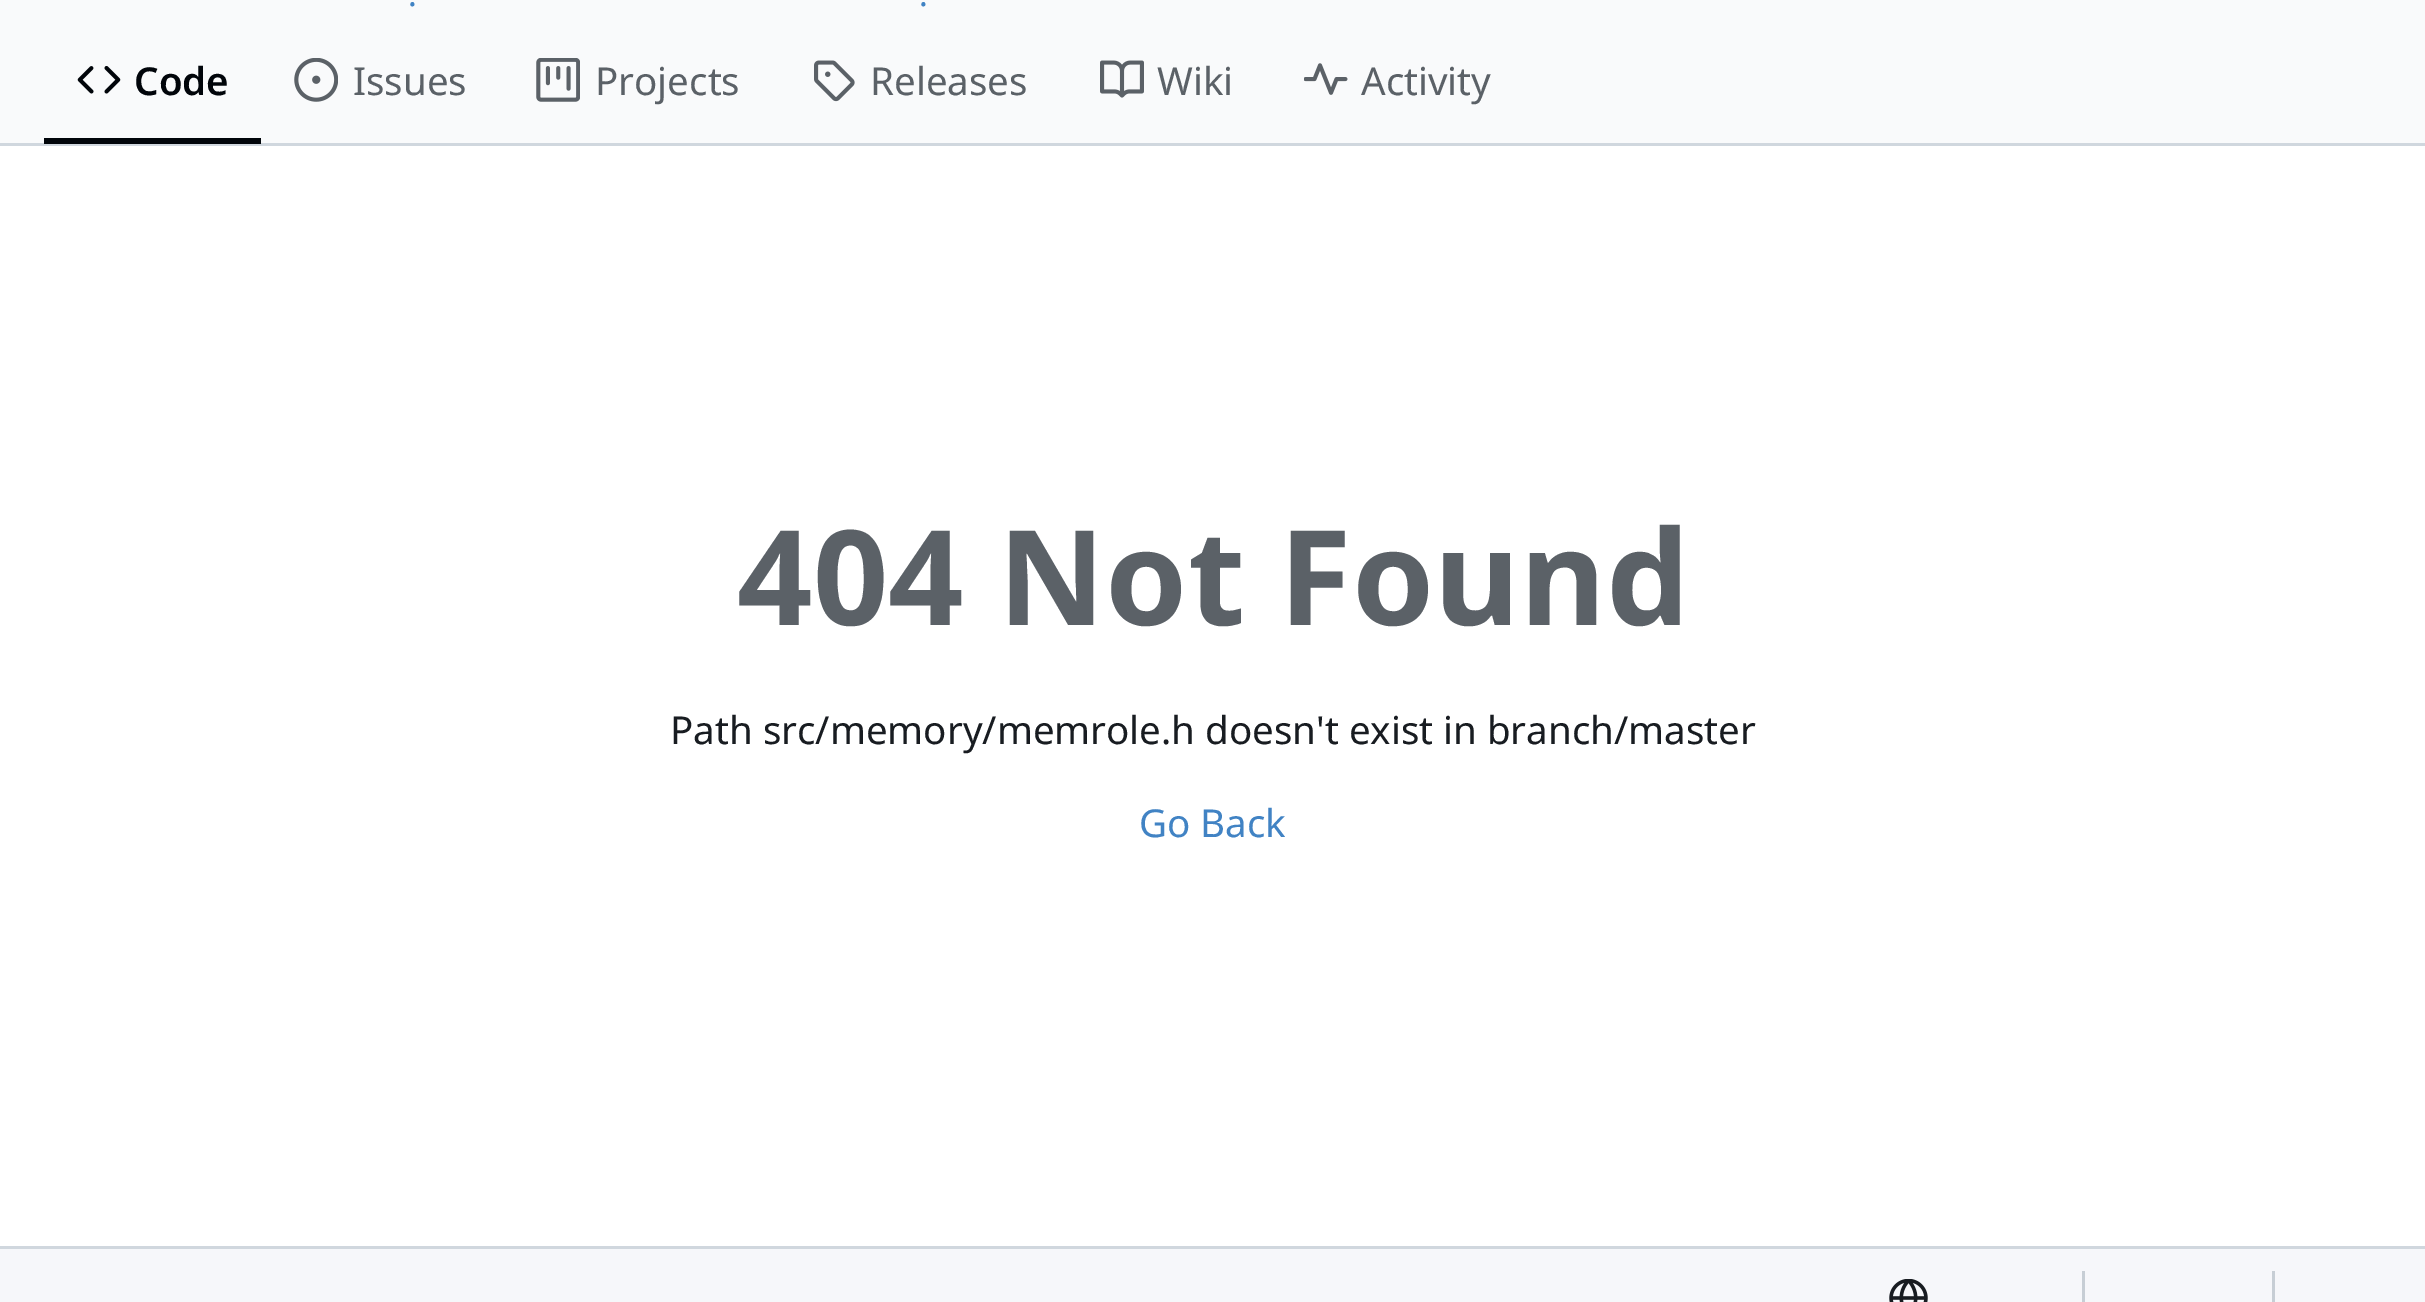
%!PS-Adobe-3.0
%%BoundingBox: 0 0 2425 1302
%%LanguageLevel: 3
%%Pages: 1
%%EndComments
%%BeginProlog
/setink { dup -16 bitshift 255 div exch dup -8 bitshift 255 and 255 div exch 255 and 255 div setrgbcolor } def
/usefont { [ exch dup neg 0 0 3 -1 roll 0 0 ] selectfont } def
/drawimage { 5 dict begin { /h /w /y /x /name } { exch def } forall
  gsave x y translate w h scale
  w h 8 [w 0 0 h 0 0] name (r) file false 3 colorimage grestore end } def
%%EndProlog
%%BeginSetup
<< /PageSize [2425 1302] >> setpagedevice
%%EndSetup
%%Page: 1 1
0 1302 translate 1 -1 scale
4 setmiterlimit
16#FFFFFF setink
0 0 2425 1302 rectfill
16#F9FAFB setink
0 0 2425 143 rectfill
/NotoSans-Regular 33 usefont
16#4183C4 setink
408 6 moveto (.) show
919 6 moveto (.) show
16#D0D7DE setink
0 143 2425 3 rectfill
16#01050A setink
44 138 217 6 rectfill
(img1.raw) 77 66 44 28 drawimage
/NotoSans-SemiBold 38.5 usefont
134 95 moveto (Code) show
(img2.raw) 294 58 44 44 drawimage
/NotoSans-Regular 38.5 usefont
16#5B6167 setink
353 95 moveto (Issues) show
(img3.raw) 536 58 44 44 drawimage
595 95 moveto (Projects) show
(img4.raw) 814 60 41 42 drawimage
870 95 moveto (Releases) show
(img5.raw) 1100 60 44 38 drawimage
1157 95 moveto (Wiki) show
(img6.raw) 1304 63 44 32 drawimage
1361 95 moveto (Activity) show
/NotoSans-Bold 132 usefont
737 625 moveto (404 Not Found) show
/NotoSans-Regular 38.5 usefont
16#181C21 setink
670 744 moveto (Path src/memory/memrole.h doesn't exist in branch/master) show
16#4183C4 setink
1139 837 moveto (Go Back) show
16#F6F7FA setink
0 1249 2425 53 rectfill
16#D0D7DE setink
0 1246 2425 3 rectfill
(img7.raw) 1889 1279 39 23 drawimage
16#C7CED5 setink
2082 1271 3 31 rectfill
2272 1271 3 31 rectfill
showpage
%%EOF
